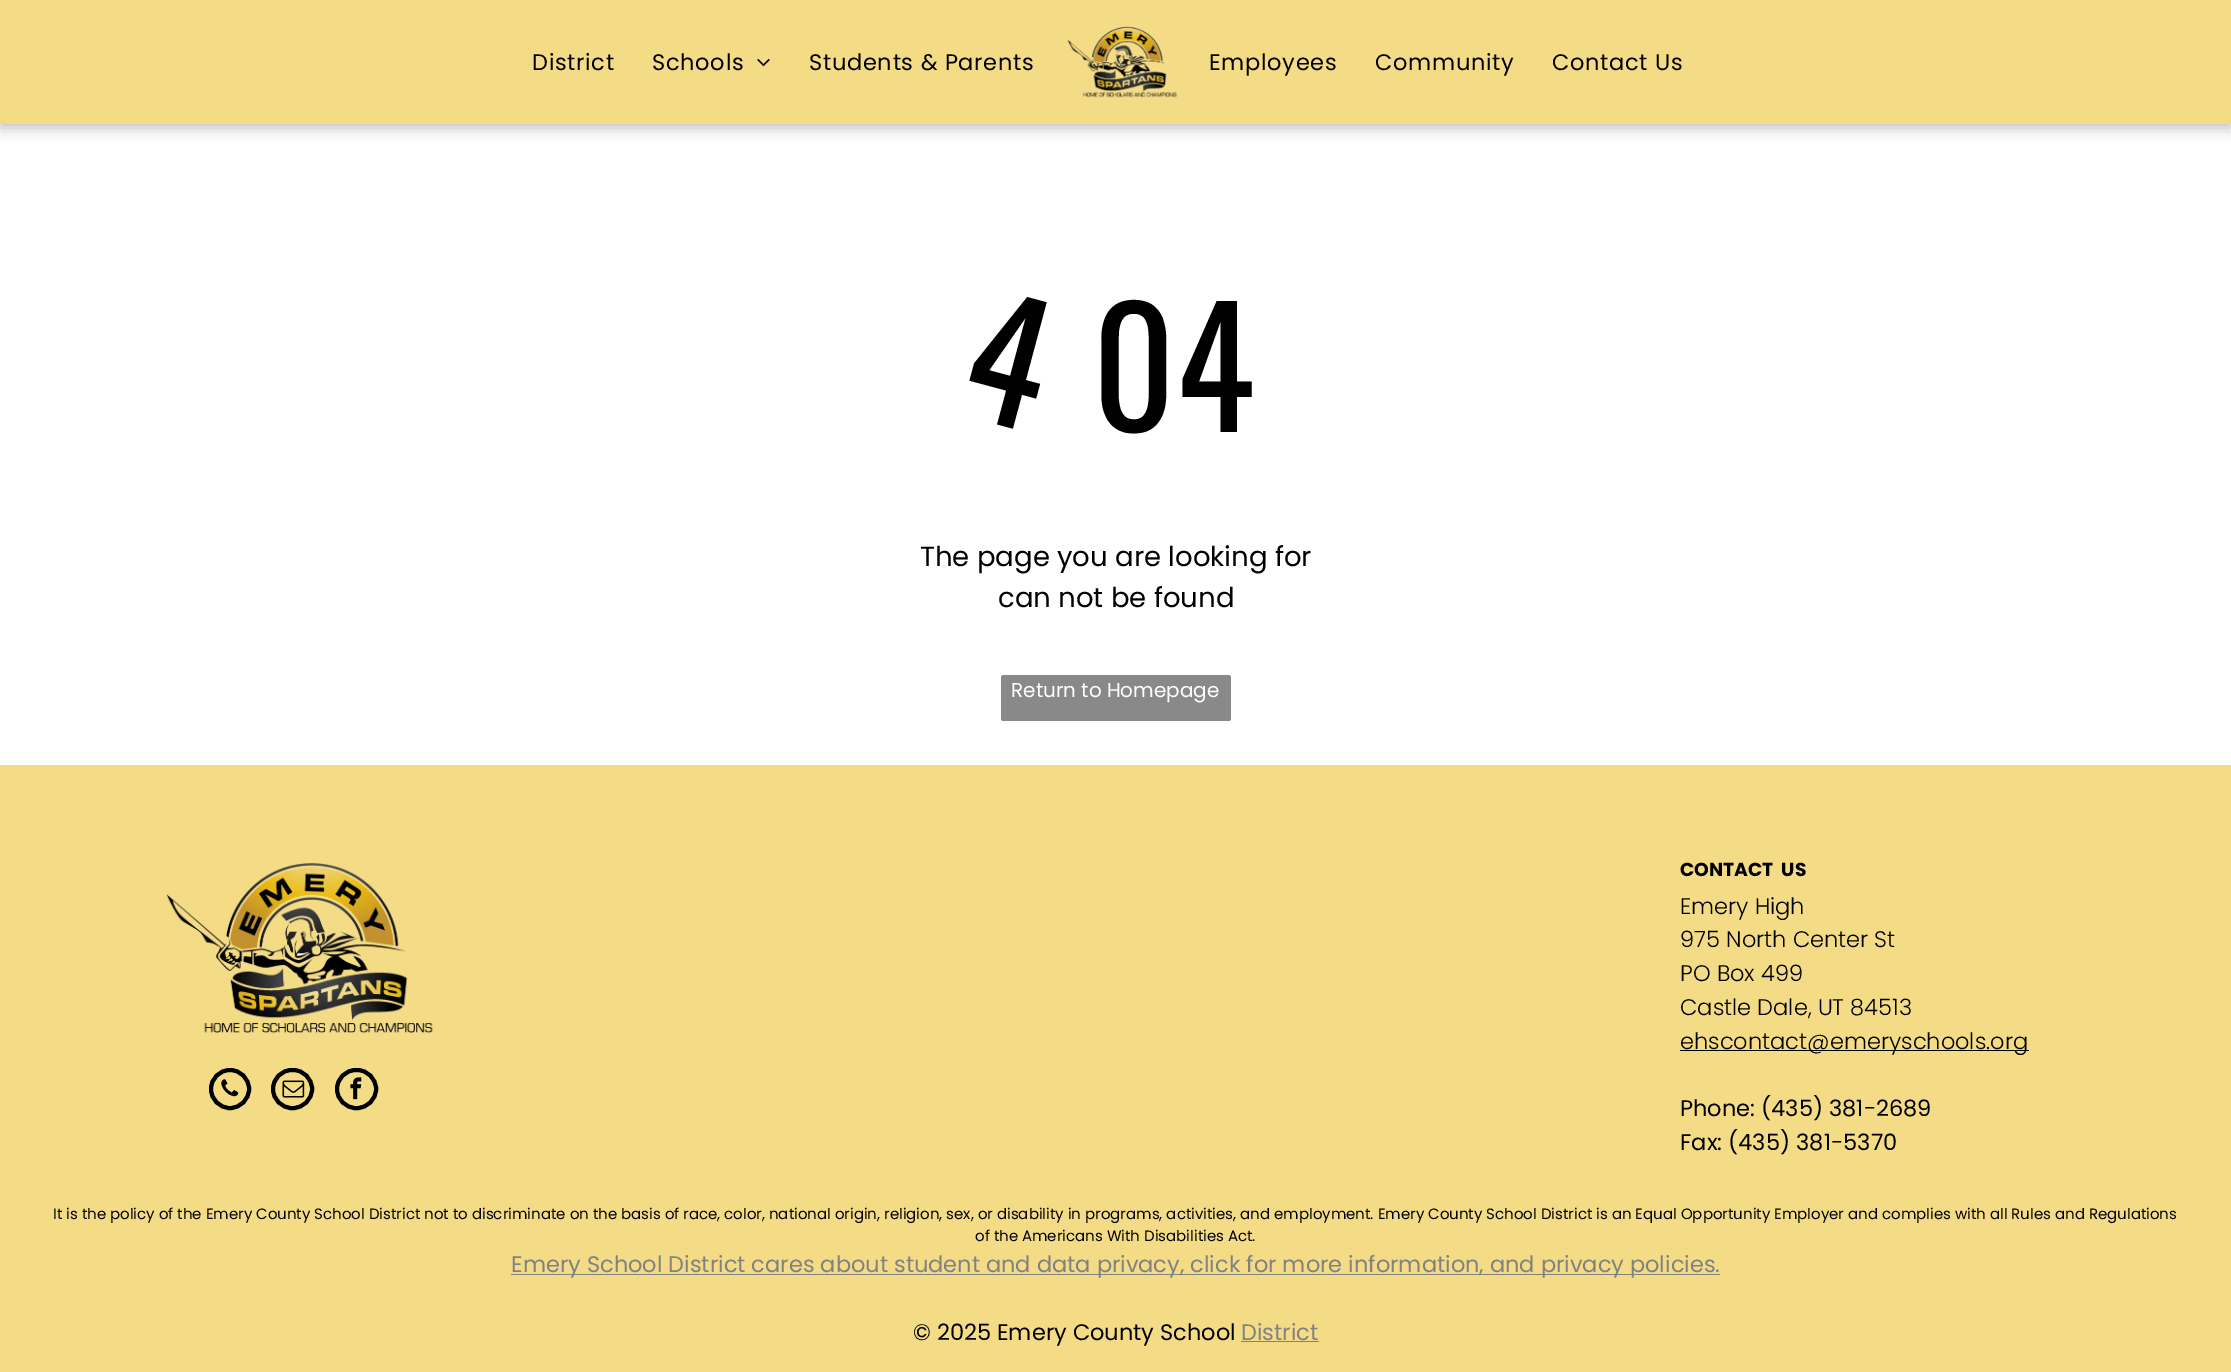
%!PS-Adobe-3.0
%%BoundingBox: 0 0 2231 1372
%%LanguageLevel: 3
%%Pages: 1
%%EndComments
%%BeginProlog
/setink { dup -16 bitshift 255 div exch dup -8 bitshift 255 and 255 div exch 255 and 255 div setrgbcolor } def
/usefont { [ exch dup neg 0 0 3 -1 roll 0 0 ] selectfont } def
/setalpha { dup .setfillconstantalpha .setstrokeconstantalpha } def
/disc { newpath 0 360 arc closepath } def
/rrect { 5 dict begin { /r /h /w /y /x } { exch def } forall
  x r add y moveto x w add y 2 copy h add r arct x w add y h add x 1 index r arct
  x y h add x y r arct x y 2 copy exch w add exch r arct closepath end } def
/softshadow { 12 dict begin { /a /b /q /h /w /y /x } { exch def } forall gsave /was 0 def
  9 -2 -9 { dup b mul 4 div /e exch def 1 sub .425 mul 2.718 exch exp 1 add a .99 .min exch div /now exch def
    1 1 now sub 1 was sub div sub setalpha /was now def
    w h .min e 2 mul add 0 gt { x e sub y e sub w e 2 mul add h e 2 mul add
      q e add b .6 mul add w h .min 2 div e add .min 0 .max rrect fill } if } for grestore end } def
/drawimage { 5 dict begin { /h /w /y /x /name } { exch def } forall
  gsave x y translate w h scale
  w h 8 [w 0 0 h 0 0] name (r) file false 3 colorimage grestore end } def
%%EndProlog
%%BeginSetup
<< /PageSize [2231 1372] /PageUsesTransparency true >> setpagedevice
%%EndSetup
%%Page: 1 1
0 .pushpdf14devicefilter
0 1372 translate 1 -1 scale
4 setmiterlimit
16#FFFFFF setink
0 0 2231 1372 rectfill
16#000000 setink
0 4 2231 124 0 7 0.25 softshadow
16#F4DC87 setink
0 0 2231 124 rectfill
/Poppins-Regular 22.5 usefont
16#000000 setink
532 70 moveto 0.7 0 (District) ashow
652 70 moveto 0.7 0 (Schools) ashow
(img1.raw) 757 59 13 8 drawimage
809 70 moveto 0.7 0 (Students & Parents) ashow
(img2.raw) 1067 26 110 72 drawimage
1209 70 moveto 0.7 0 (Employees) ashow
1375 70 moveto 0.7 0 (Community) ashow
1552 70 moveto 0.7 0 (Contact Us) ashow
/Oswald-Regular 162 usefont
gsave 954 413 translate 15 rotate 0 0 moveto (4) show grestore
1092 432 moveto (04) show
/Poppins-Regular 27.5 usefont
920 566 moveto (The page you are looking for) show
998 607 moveto (can not be found) show
16#898989 setink
1001 675 230 46 2.5 rrect fill
/Poppins-Regular 20 usefont
16#FFFFFF setink
1011 697 moveto (Return to Homepage) show
16#F4DC87 setink
0 765 2231 607 rectfill
(img3.raw) 166 863 267 170 drawimage
16#000000 setink
4 setlinewidth
230 1089 19 disc stroke
(img4.raw) 221 1079 18 18 drawimage
273 1070 39 38 19 rrect stroke
(img5.raw) 282 1080 23 18 drawimage
337 1070 39 38 19 rrect stroke
(img6.raw) 350 1077 12 23 drawimage
/Poppins-Bold 18.75 usefont
1680 876 moveto (CONTACT  US) show
/Poppins-Light 22.5 usefont
[
    [(Emery High) 1680 914]
    [(975 North Center St) 1680 947]
    [(PO Box 499) 1680 981]
    [(Castle Dale, UT 84513) 1680 1015]
] { aload pop moveto show } forall
1680 1050 349 1 rectfill
1680 1049 moveto (ehscontact@emeryschools.org) show
/Poppins-Regular 22.5 usefont
1680 1116 moveto (Phone: \(435\) 381-2689) show
1680 1150 moveto (Fax: \(435\) 381-5370) show
/Poppins-Regular 15 usefont
53 1219 moveto (It is the policy of the Emery County School District not to discriminate on the basis of race, color, national origin, religion, sex, or disability in programs, activities, and employment. Emery County School District is an Equal Opportunity Employer and complies with all Rules and Regulations) show
975 1241 moveto (of the Americans With Disabilities Act.) show
16#818181 setink
511 1274 1209 1 rectfill
/Poppins-Regular 22.5 usefont
511 1272 moveto (Emery School District cares about student and data privacy, click for more information, and privacy policies.) show
16#000000 setink
913 1340 moveto (© 2025 Emery County School) show
16#818181 setink
1241 1340 moveto (District) show
1241 1341 78 1 rectfill
.poppdf14devicefilter showpage
%%EOF
